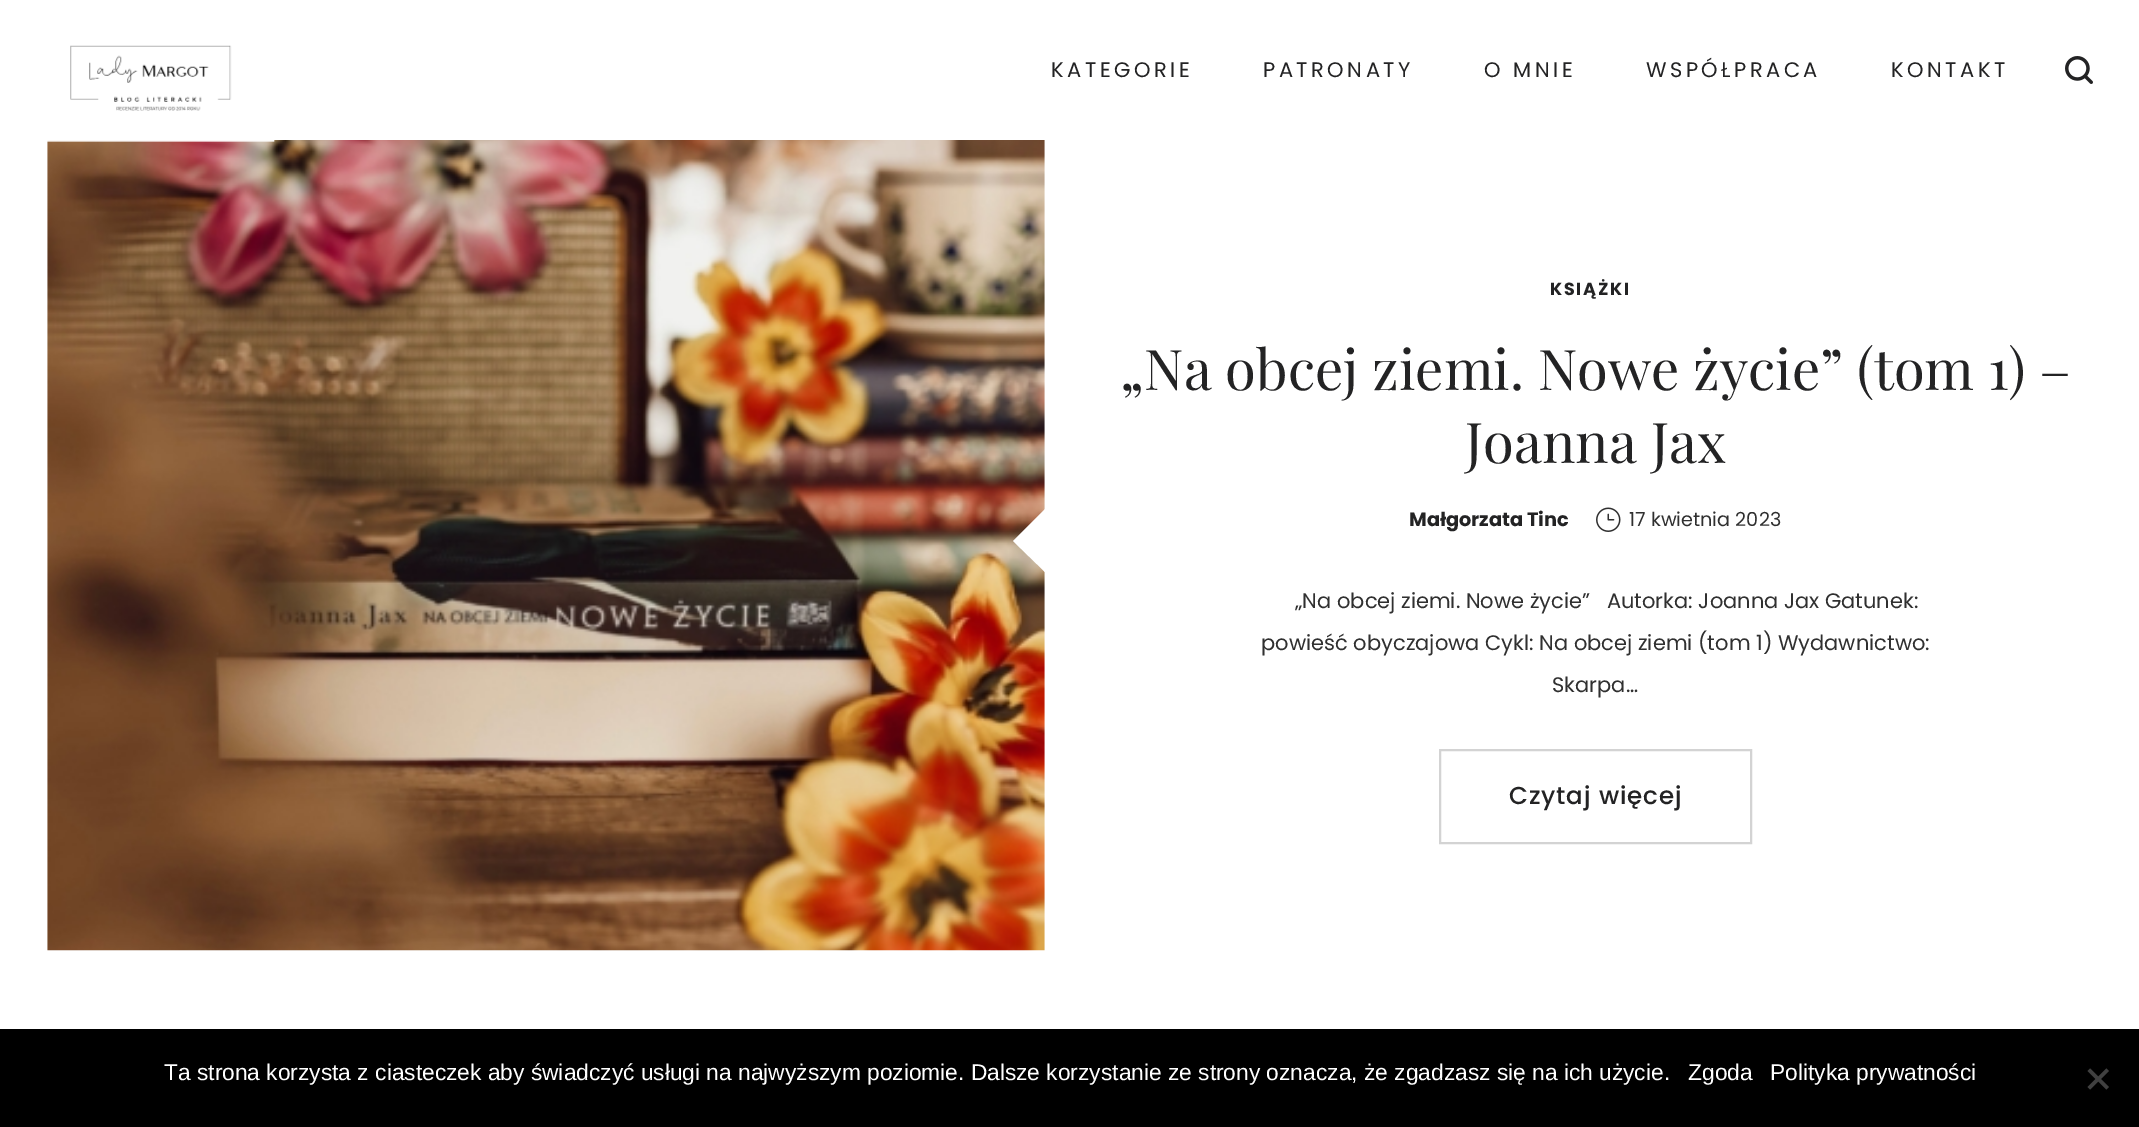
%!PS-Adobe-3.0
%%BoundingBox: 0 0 2139 1127
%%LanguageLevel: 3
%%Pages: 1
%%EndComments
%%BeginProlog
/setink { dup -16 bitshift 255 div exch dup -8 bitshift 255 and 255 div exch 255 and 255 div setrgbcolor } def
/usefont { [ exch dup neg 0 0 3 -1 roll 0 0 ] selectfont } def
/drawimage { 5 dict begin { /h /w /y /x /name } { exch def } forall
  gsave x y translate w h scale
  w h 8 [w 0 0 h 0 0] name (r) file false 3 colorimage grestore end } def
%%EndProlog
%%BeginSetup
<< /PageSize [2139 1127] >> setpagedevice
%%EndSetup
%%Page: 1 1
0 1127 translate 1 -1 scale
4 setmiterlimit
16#FFFFFF setink
0 0 2139 1127 rectfill
(img3.raw) 47 140 998 811 drawimage
(img1.raw) 47 45 228 97 drawimage
/Poppins-Regular 21 usefont
16#232324 setink
1051 77 moveto 3.5 0 (KATEGORIE) ashow
1263 77 moveto 3.5 0 (PATRONATY) ashow
1484 77 moveto 3.5 0 (O MNIE) ashow
1646 77 moveto 3.5 0 (WSPÓŁPRACA) ashow
1891 77 moveto 3.5 0 (KONTAKT) ashow
(img2.raw) 2065 56 28 28 drawimage
16#FFFFFF setink
1045 509 moveto 1045 572 lineto 1013 541 lineto closepath fill
/Poppins-Bold 17.5 usefont
16#232324 setink
1550 295 moveto 1.75 0 (KSIĄŻKI) ashow
/PlayfairDisplay-Regular 56 usefont
1120 390 moveto („Na obcej ziemi. Nowe życie” \(tom 1\) –) show
1465 463 moveto (Joanna Jax) show
/Poppins-Bold 19.25 usefont
1409 526 moveto (Małgorzata Tinc) show
(img4.raw) 1596 507 25 25 drawimage
/Poppins-Regular 19.25 usefont
16#303030 setink
1629 526 moveto (17 kwietnia 2023) show
/Poppins-Regular 21 usefont
[
    [(„Na obcej ziemi. Nowe życie”   Autorka: Joanna Jax Gatunek:) 1295 608]
    [(powieść obyczajowa Cykl: Na obcej ziemi \(tom 1\) Wydawnictwo:) 1261 650]
    [(Skarpa…) 1552 692]
] { aload pop moveto show } forall
16#D3D3D3 setink
2 setlinewidth
1440 750 311 93 rectstroke
/Poppins-Medium 24.5 usefont
16#232324 setink
1509 804 moveto 0.9 0 (Czytaj więcej) ashow
16#000000 setink
0 1029 2139 98 rectfill
/LiberationSans-Regular 22.75 usefont
16#FFFFFF setink
[
    [(Ta strona korzysta z ciasteczek aby świadczyć usługi na najwyższym poziomie. Dalsze korzystanie ze strony oznacza, że zgadzasz się na ich użycie.) 164 1080]
    [(Zgoda) 1688 1080]
    [(Polityka prywatności) 1770 1080]
] { aload pop moveto show } forall
16#404040 setink
2106.5 1068.5 moveto 2109 1071 lineto 2090 1089.5 lineto 2087.5 1087 lineto closepath fill
2087.5 1071 moveto 2090 1068.5 lineto 2109 1087 lineto 2106.5 1089.5 lineto closepath fill
showpage
%%EOF
